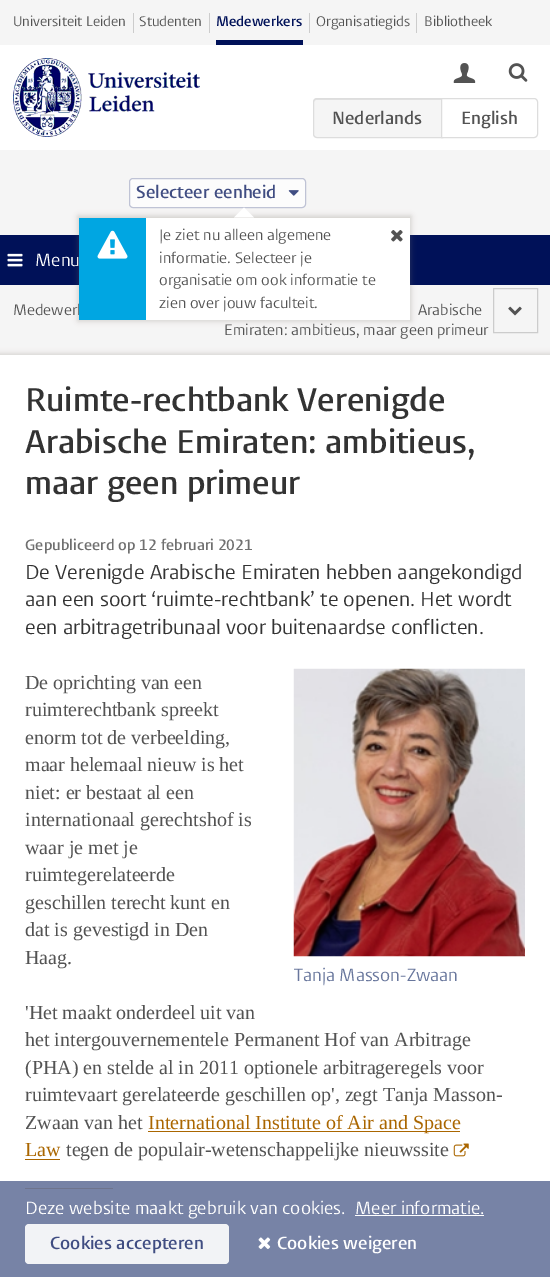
%!PS-Adobe-3.0
%%BoundingBox: 0 0 550 1277
%%LanguageLevel: 3
%%Pages: 1
%%EndComments
%%BeginProlog
/setink { dup -16 bitshift 255 div exch dup -8 bitshift 255 and 255 div exch 255 and 255 div setrgbcolor } def
/usefont { [ exch dup neg 0 0 3 -1 roll 0 0 ] selectfont } def
/setalpha { dup .setfillconstantalpha .setstrokeconstantalpha } def
/rrect { 5 dict begin { /r /h /w /y /x } { exch def } forall
  x r add y moveto x w add y 2 copy h add r arct x w add y h add x 1 index r arct
  x y h add x y r arct x y 2 copy exch w add exch r arct closepath end } def
/softshadow { 12 dict begin { /a /b /q /h /w /y /x } { exch def } forall gsave /was 0 def
  9 -2 -9 { dup b mul 4 div /e exch def 1 sub .425 mul 2.718 exch exp 1 add a .99 .min exch div /now exch def
    1 1 now sub 1 was sub div sub setalpha /was now def
    w h .min e 2 mul add 0 gt { x e sub y e sub w e 2 mul add h e 2 mul add
      q e add b .6 mul add w h .min 2 div e add .min 0 .max rrect fill } if } for grestore end } def
/drawimage { 5 dict begin { /h /w /y /x /name } { exch def } forall
  gsave x y translate w h scale
  w h 8 [w 0 0 h 0 0] name (r) file false 3 colorimage grestore end } def
%%EndProlog
%%BeginSetup
<< /PageSize [550 1277] /PageUsesTransparency true >> setpagedevice
%%EndSetup
%%Page: 1 1
0 .pushpdf14devicefilter
0 1277 translate 1 -1 scale
4 setmiterlimit
16#F5F5F5 setink
0 0 550 1277 rectfill
16#FFFFFF setink
0 45 550 105 rectfill
16#CCCCCC setink
133 13 1 20 rectfill
/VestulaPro-Regular 13.75 usefont
16#535353 setink
13 26 moveto (Universiteit Leiden) show
16#CCCCCC setink
209 13 1 20 rectfill
16#535353 setink
139 26 moveto (Studenten) show
16#CCCCCC setink
309 13 1 20 rectfill
/VestulaPro-SemiBold 13.75 usefont
16#001158 setink
216 26 moveto (Medewerkers) show
216 40 87 5 rectfill
16#CCCCCC setink
416 13 1 20 rectfill
/VestulaPro-Regular 13.75 usefont
16#535353 setink
316 26 moveto (Organisatiegids) show
424 26 moveto (Bibliotheek) show
(img1.raw) 13 58 187 79 drawimage
(img2.raw) 453 63 23 20 drawimage
(img3.raw) 508 63 20 19 drawimage
16#F5F5F5 setink
317 98 moveto 443 98 lineto 443 138 lineto 317 138 lineto 315 138 313 136 313 134 curveto 313 102 lineto 313 100 315 98 317 98 curveto closepath fill
16#E1E1E1 setink
316 100 moveto 441 100 lineto 441 99 lineto 316 99 lineto 315 99 314 100 314 102 curveto 314 101 315 100 316 100 curveto closepath fill
16#DDDDDD setink
317 98.5 moveto 442.5 98.5 lineto 442.5 137.5 lineto 317 137.5 lineto 315 137.5 313.5 136 313.5 134 curveto 313.5 102 lineto 313.5 100 315 98.5 317 98.5 curveto closepath stroke
/VestulaPro-SemiBold 17.5 usefont
16#535353 setink
332 124 moveto (Nederlands) show
16#FFFFFF setink
441.5 98.5 moveto 534 98.5 lineto 536 98.5 537.5 100 537.5 102 curveto 537.5 134 lineto 537.5 136 536 137.5 534 137.5 curveto 441.5 137.5 lineto closepath gsave fill grestore
16#DDDDDD setink
stroke
16#535353 setink
461 124 moveto (English) show
16#001158 setink
0 235 550 50 rectfill
(img4.raw) 7 253 16 14 drawimage
/VestulaPro-Regular 17.5 usefont
16#FFFFFF setink
35 266 moveto (Menu) show
16#FCFCFC setink
129.5 178.5 176 29 3.5 rrect gsave fill grestore
16#BFC3D5 setink
stroke
/VestulaPro-SemiBold 17.5 usefont
16#404D82 setink
136 198 moveto (Selecteer eenheid) show
(img5.raw) 288 190 11 6 drawimage
16#786E64 setink
78 216 333 105 0 3 0.3 softshadow
16#FFFFFF setink
146 218 264 102 rectfill
254 217.5 moveto 234 217.5 lineto 244 207.5 lineto closepath fill
/VestulaPro-Regular 15 usefont
16#535353 setink
13 315 moveto (Medewerk) show
16#00A6E2 setink
79 218 67 102 rectfill
(img6.raw) 97 230 31 29 drawimage
16#535353 setink
159 240 moveto (Je ziet nu alleen algemene) show
(img7.raw) 391 230 12 12 drawimage
[
    [(informatie. Selecteer je) 159 263]
    [(organisatie om ook informatie te) 159 285]
    [(zien over jouw faculteit.) 159 308]
    [(Arabische) 418 315]
    [(Emiraten: ambitieus, maar geen primeur) 224 335]
] { aload pop moveto show } forall
16#CCCCCC setink
493.5 288.5 44 44 rectstroke
(img8.raw) 508 306 14 10 drawimage
16#786E64 setink
-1 354 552 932 0 3 0.3 softshadow
16#FFFFFF setink
0 355 550 922 rectfill
/VestulaPro-SemiBold 32.5 usefont
16#333333 setink
[
    [(Ruimte-rechtbank Verenigde) 25 411]
    [(Arabische Emiraten: ambitieus,) 25 453]
    [(maar geen primeur) 25 494]
] { aload pop moveto show } forall
/VestulaPro-SemiBold 15 usefont
16#707070 setink
25 550 moveto (Gepubliceerd op 12 februari 2021) show
/VestulaPro-Regular 20 usefont
16#333333 setink
[
    [(De Verenigde Arabische Emiraten hebben aangekondigd) 25 579]
    [(aan een soort ‘ruimte-rechtbank’ te openen. Het wordt) 25 606]
    [(een arbitragetribunaal voor buitenaardse conflicten.) 25 634]
] { aload pop moveto show } forall
/LiberationSerif-Regular 20 usefont
16#535353 setink
[
    [(De oprichting van een) 25 689]
    [(ruimterechtbank spreekt) 25 716]
    [(enorm tot de verbeelding,) 25 744]
    [(maar helemaal nieuw is het) 25 771]
    [(niet: er bestaat al een) 25 799]
    [(internationaal gerechtshof is) 25 826]
    [(waar je met je) 25 854]
    [(ruimtegerelateerde) 25 881]
    [(geschillen terecht kunt en) 25 909]
    [(dat is gevestigd in Den) 25 936]
    [(Haag.) 25 964]
] { aload pop moveto show } forall
(img9.raw) 293 668 232 289 drawimage
/VestulaPro-Regular 17.5 usefont
16#68769C setink
294 981 moveto (Tanja Masson-Zwaan) show
/LiberationSerif-Regular 20 usefont
16#535353 setink
[
    [('Het maakt onderdeel uit van) 25 1019]
    [(het intergouvernementele Permanent Hof van Arbitrage) 25 1046]
    [(\(PHA\) en stelde al in 2011 optionele arbitrageregels voor) 25 1074]
    [(ruimtevaart gerelateerde geschillen op', zegt Tanja Masson-) 25 1101]
    [(Zwaan van het) 25 1129]
] { aload pop moveto show } forall
16#AA6600 setink
148 1131 312 1 rectfill
148 1129 moveto (International Institute of Air and Space) show
25 1156 moveto (Law) show
25 1159 35 1 rectfill
16#535353 setink
66 1156 moveto (tegen de populair-wetenschappelijke nieuwssite) show
(img10.raw) 453 1143 16 14 drawimage
16#AA6600 setink
25 1188 88 1 rectfill
0.9 setalpha
16#68769C setink
0 1181 550 96 rectfill
/VestulaPro-Regular 17.5 usefont
1 setalpha
16#FFFFFF setink
25 1214 moveto (Deze website maakt gebruik van cookies.) show
355 1214 moveto (Meer informatie.) show
355 1215 129 1 rectfill
0.9 setalpha
25 1224 204 40 4 rrect fill
/VestulaPro-SemiBold 17.5 usefont
1 setalpha
16#404D82 setink
50 1249 moveto (Cookies accepteren) show
(img11.raw) 258 1237 13 12 drawimage
16#FFFFFF setink
277 1249 moveto (Cookies weigeren) show
.poppdf14devicefilter showpage
%%EOF
